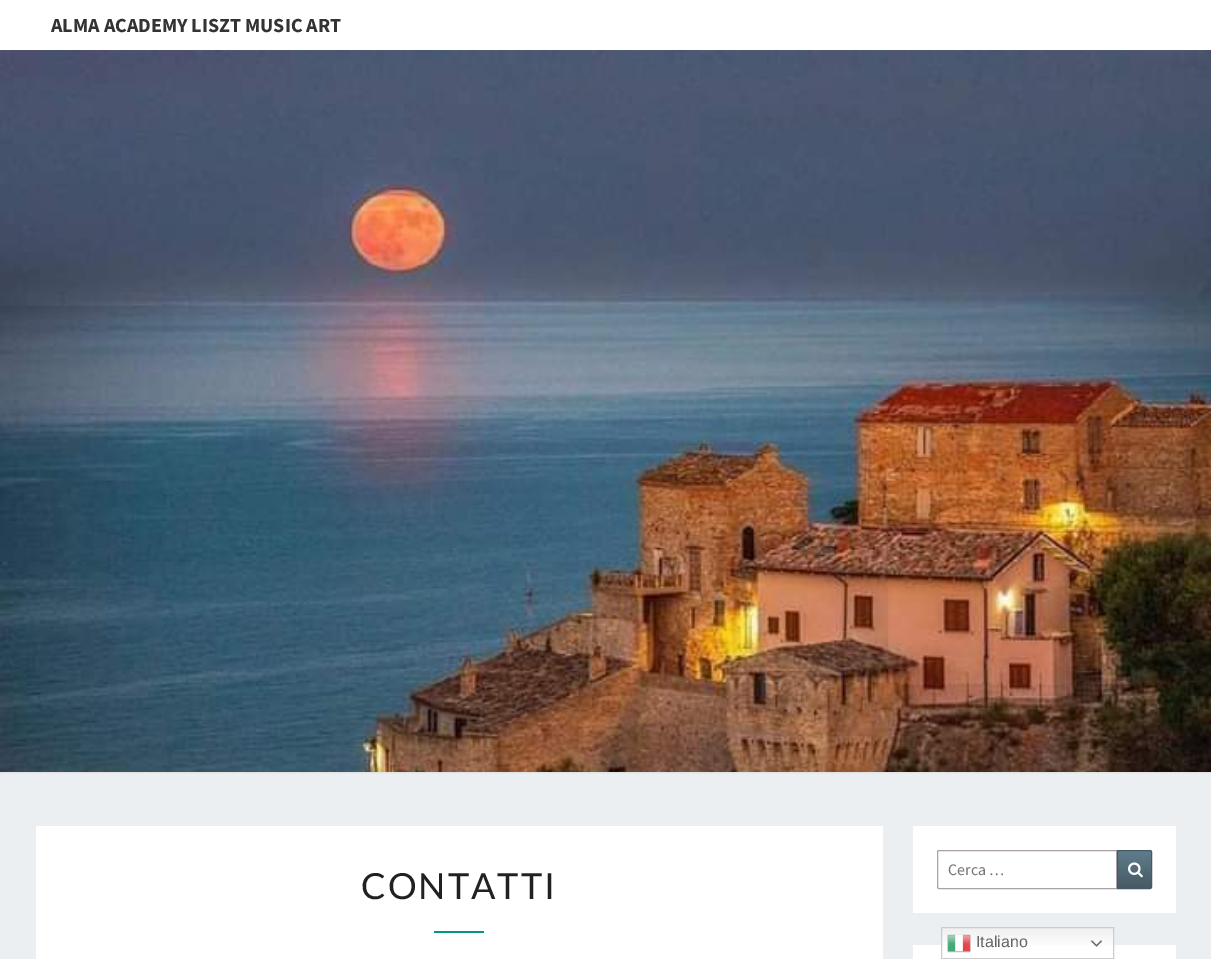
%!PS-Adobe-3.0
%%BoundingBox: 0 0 1211 959
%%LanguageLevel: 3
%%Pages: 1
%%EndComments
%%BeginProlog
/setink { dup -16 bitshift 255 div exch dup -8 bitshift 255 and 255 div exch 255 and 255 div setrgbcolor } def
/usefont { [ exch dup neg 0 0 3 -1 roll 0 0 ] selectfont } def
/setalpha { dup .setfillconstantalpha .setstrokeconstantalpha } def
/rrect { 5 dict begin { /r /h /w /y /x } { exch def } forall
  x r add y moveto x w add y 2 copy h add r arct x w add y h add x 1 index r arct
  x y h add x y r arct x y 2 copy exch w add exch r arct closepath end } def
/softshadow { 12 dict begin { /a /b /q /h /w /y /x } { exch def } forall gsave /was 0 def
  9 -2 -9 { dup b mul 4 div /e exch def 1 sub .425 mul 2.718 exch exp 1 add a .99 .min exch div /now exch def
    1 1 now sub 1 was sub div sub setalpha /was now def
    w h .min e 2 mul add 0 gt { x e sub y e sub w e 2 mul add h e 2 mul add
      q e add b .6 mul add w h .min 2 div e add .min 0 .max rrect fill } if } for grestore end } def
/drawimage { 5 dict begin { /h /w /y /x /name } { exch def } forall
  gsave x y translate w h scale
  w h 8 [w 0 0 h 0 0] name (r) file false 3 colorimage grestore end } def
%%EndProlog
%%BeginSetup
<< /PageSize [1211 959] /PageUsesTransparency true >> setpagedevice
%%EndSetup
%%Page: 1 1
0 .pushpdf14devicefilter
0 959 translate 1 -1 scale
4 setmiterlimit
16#ECEFF1 setink
0 0 1211 959 rectfill
16#B6B6B6 setink
-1 49 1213 724 0 1 0.3 softshadow
(img1.raw) 0 50 1211 722 drawimage
16#646464 setink
0 1 1211 50 0 0.5 0.2 softshadow
16#FFFFFF setink
0 0 1211 50 rectfill
/SourceSansPro-Bold 20 usefont
16#333333 setink
51 32 moveto (ALMA ACADEMY LISZT MUSIC ART) show
16#FFFFFF setink
913 826 263 87 rectfill
16#AAA1A8 setink
939 850.5 moveto 1116.5 850.5 lineto 1116.5 888.5 lineto 939 888.5 lineto 938 888.5 937.5 888 937.5 887 curveto 937.5 852 lineto 937.5 851 938 850.5 939 850.5 curveto closepath stroke
/SourceSansPro-Regular 16 usefont
16#757575 setink
948 875 moveto (Cerca …) show
gsave 1118 851 moveto 1152 851 lineto 1152 888 lineto 1118 888 lineto closepath clip newpath
<< /ShadingType 2 /ColorSpace /DeviceRGB /Coords [1135 851 1135 888] /Extend [true true] /Function << /FunctionType 2 /Domain [0 1] /C0 [0.376 0.49 0.545] /C1 [0.271 0.353 0.392] /N 1 >> >> shfill grestore
16#455A64 setink
1117.5 850.5 moveto 1150 850.5 lineto 1151 850.5 1151.5 851 1151.5 852 curveto 1151.5 887 lineto 1151.5 888 1151 888.5 1150 888.5 curveto 1117.5 888.5 lineto closepath stroke
(img2.raw) 1128 862 15 16 drawimage
16#FFFFFF setink
913 945 263 14 rectfill
36 826 847 133 rectfill
/Lato-Regular 36 usefont
16#212121 setink
361 899 moveto 2 0 (CONTATTI) ashow
16#009688 setink
434 931 50 2 rectfill
gsave 942 928 moveto 1113 928 lineto 1113 946 lineto 942 946 lineto closepath clip newpath
<< /ShadingType 2 /ColorSpace /DeviceRGB /Coords [1028 927 1028 959] /Extend [true true] /Function << /FunctionType 3 /Domain [0 1] /Functions [<< /FunctionType 2 /Domain [0 1] /C0 [0.937 0.937 0.937] /C1 [1 1 1] /N 1 >> << /FunctionType 2 /Domain [0 1] /C0 [1 1 1] /C1 [1 1 1] /N 1 >>] /Bounds [0.7] /Encode [0 1 0 1] >> >> shfill grestore
16#CCCCCC setink
941.5 927.5 172 31 rectstroke
(img3.raw) 947 934 24 19 drawimage
/LiberationSans-Regular 16 usefont
16#666666 setink
976 947 moveto (Italiano) show
(img4.raw) 1091 940 11 7 drawimage
.poppdf14devicefilter showpage
%%EOF
